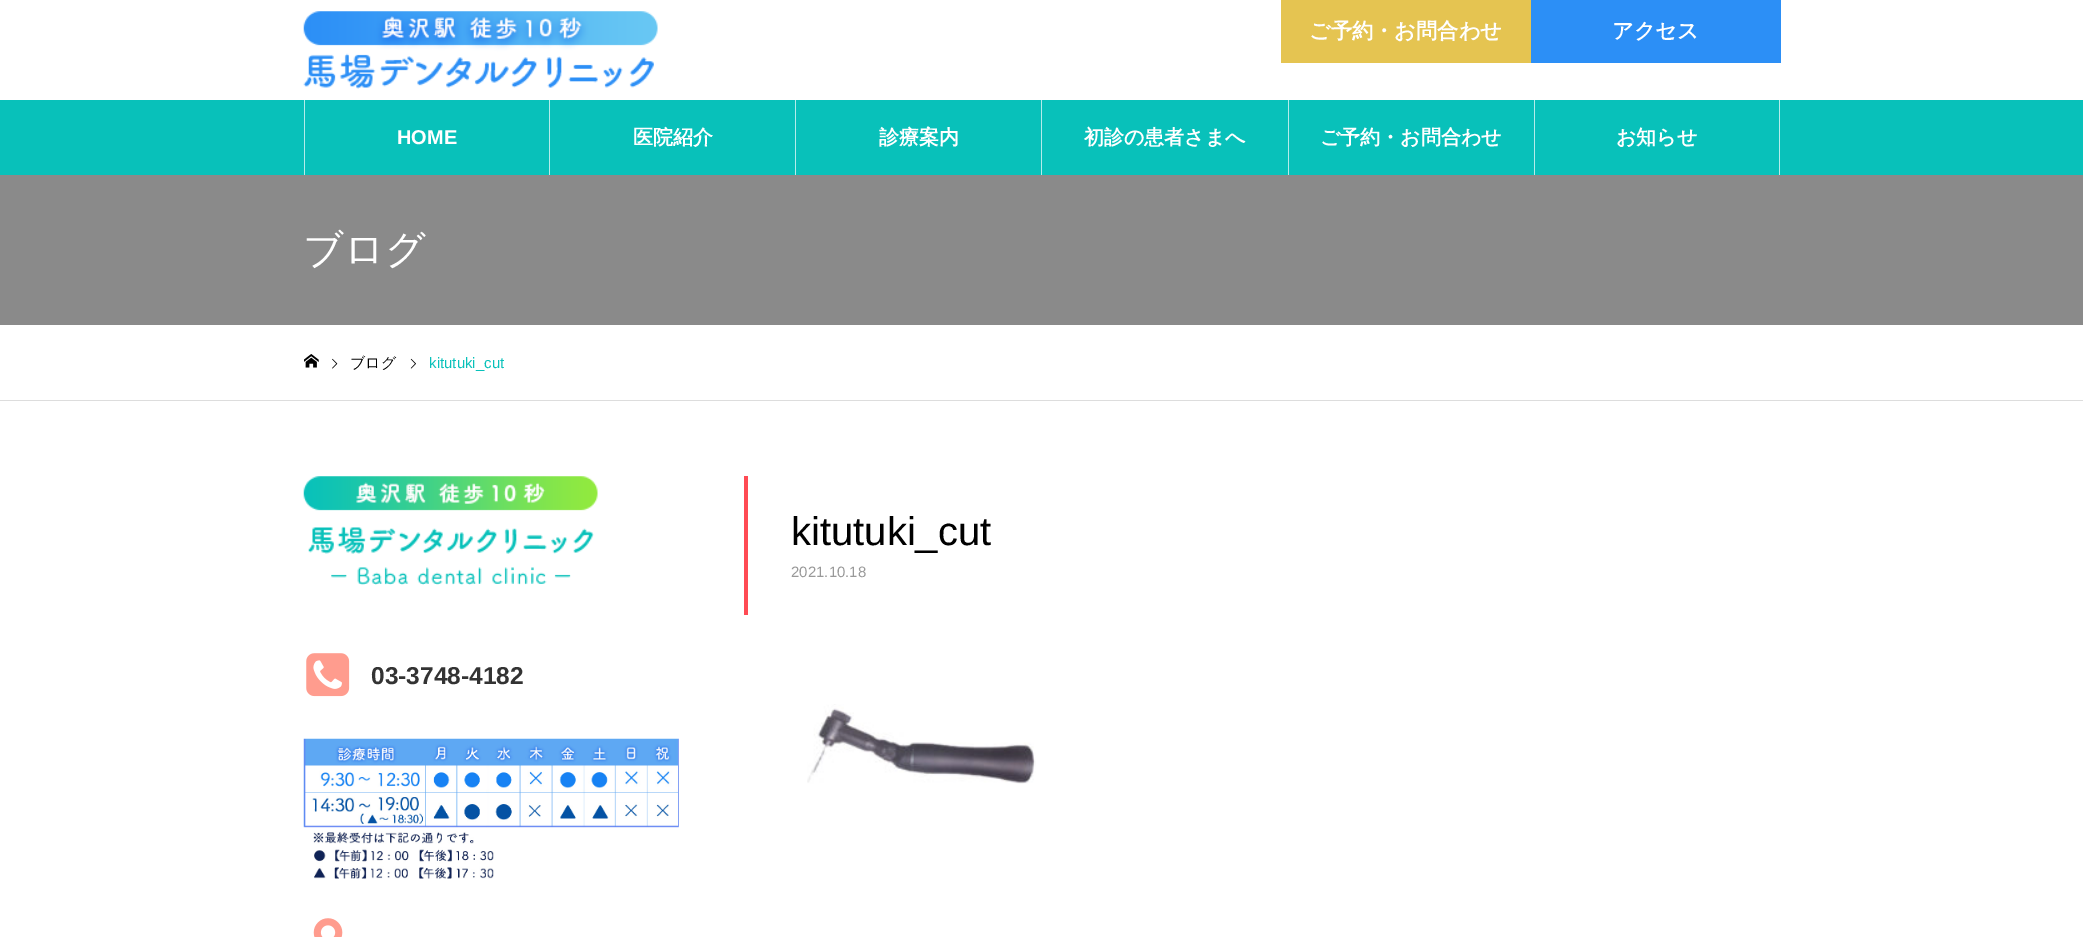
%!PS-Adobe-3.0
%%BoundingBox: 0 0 2083 937
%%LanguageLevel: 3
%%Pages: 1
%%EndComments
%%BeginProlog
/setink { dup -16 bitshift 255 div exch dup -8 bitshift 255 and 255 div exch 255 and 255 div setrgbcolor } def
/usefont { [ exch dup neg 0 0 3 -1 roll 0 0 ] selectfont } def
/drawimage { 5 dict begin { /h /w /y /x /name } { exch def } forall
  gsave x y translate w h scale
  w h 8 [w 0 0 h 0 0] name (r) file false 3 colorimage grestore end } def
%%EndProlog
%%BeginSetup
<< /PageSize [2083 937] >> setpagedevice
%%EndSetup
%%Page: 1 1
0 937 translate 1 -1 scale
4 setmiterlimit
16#FFFFFF setink
0 0 2083 937 rectfill
(img1.raw) 303 11 355 78 drawimage
16#E5C451 setink
1281 0 250 63 rectfill
/WenQuanYiZenHei-Bold 21.25 usefont
16#FFFFFF setink
1309 38 moveto (ご予約・お問合わせ) show
16#2C8FF6 setink
1531 0 250 63 rectfill
16#FFFFFF setink
1612 38 moveto (アクセス) show
[
    [0 100 2083 75 16#08C1BA]
    [304 100 1 75 16#B5ECEA]
    [549 100 1 75 16#B5ECEA]
] { aload pop setink rectfill } forall
/LiberationSans-Bold 20 usefont
16#FFFFFF setink
397 144 moveto (HOME) show
16#B5ECEA setink
795 100 1 75 rectfill
/WenQuanYiZenHei-Bold 20 usefont
16#FFFFFF setink
633 144 moveto (医院紹介) show
16#B5ECEA setink
1041 100 1 75 rectfill
16#FFFFFF setink
879 144 moveto (診療案内) show
16#B5ECEA setink
1288 100 1 75 rectfill
16#FFFFFF setink
1084 144 moveto (初診の患者さまへ) show
16#B5ECEA setink
1534 100 1 75 rectfill
16#FFFFFF setink
1320 144 moveto (ご予約・お問合わせ) show
16#B5ECEA setink
1779 100 1 75 rectfill
16#FFFFFF setink
1616 144 moveto (お知らせ) show
16#8A8A8A setink
0 175 2083 150 rectfill
/WenQuanYiZenHei-Medium 40 usefont
16#FFFFFF setink
303 263 moveto (ブログ) show
16#DDDDDD setink
0 400 2083 1 rectfill
(img2.raw) 304 354 15 14 drawimage
(img3.raw) 332 358 6 11 drawimage
/WenQuanYiZenHei-Medium 15 usefont
16#000000 setink
350 368 moveto (ブログ) show
(img4.raw) 410 358 6 11 drawimage
/LiberationSans-Regular 15 usefont
16#08C1BA setink
429 368 moveto (kitutuki_cut) show
16#FF4B54 setink
744 476 4 139 rectfill
/LiberationSans-Regular 40 usefont
16#000000 setink
791 545 moveto (kitutuki_cut) show
/LiberationSans-Regular 15 usefont
16#999999 setink
791 577 moveto (2021.10.18) show
(img5.raw) 807 704 229 80 drawimage
(img6.raw) 303 476 295 109 drawimage
(img7.raw) 306 653 44 44 drawimage
/LiberationSans-Bold 24.5 usefont
16#333333 setink
371 684 moveto (03-3748-4182) show
(img8.raw) 303 738 376 141 drawimage
(img9.raw) 313 918 30 19 drawimage
showpage
%%EOF
